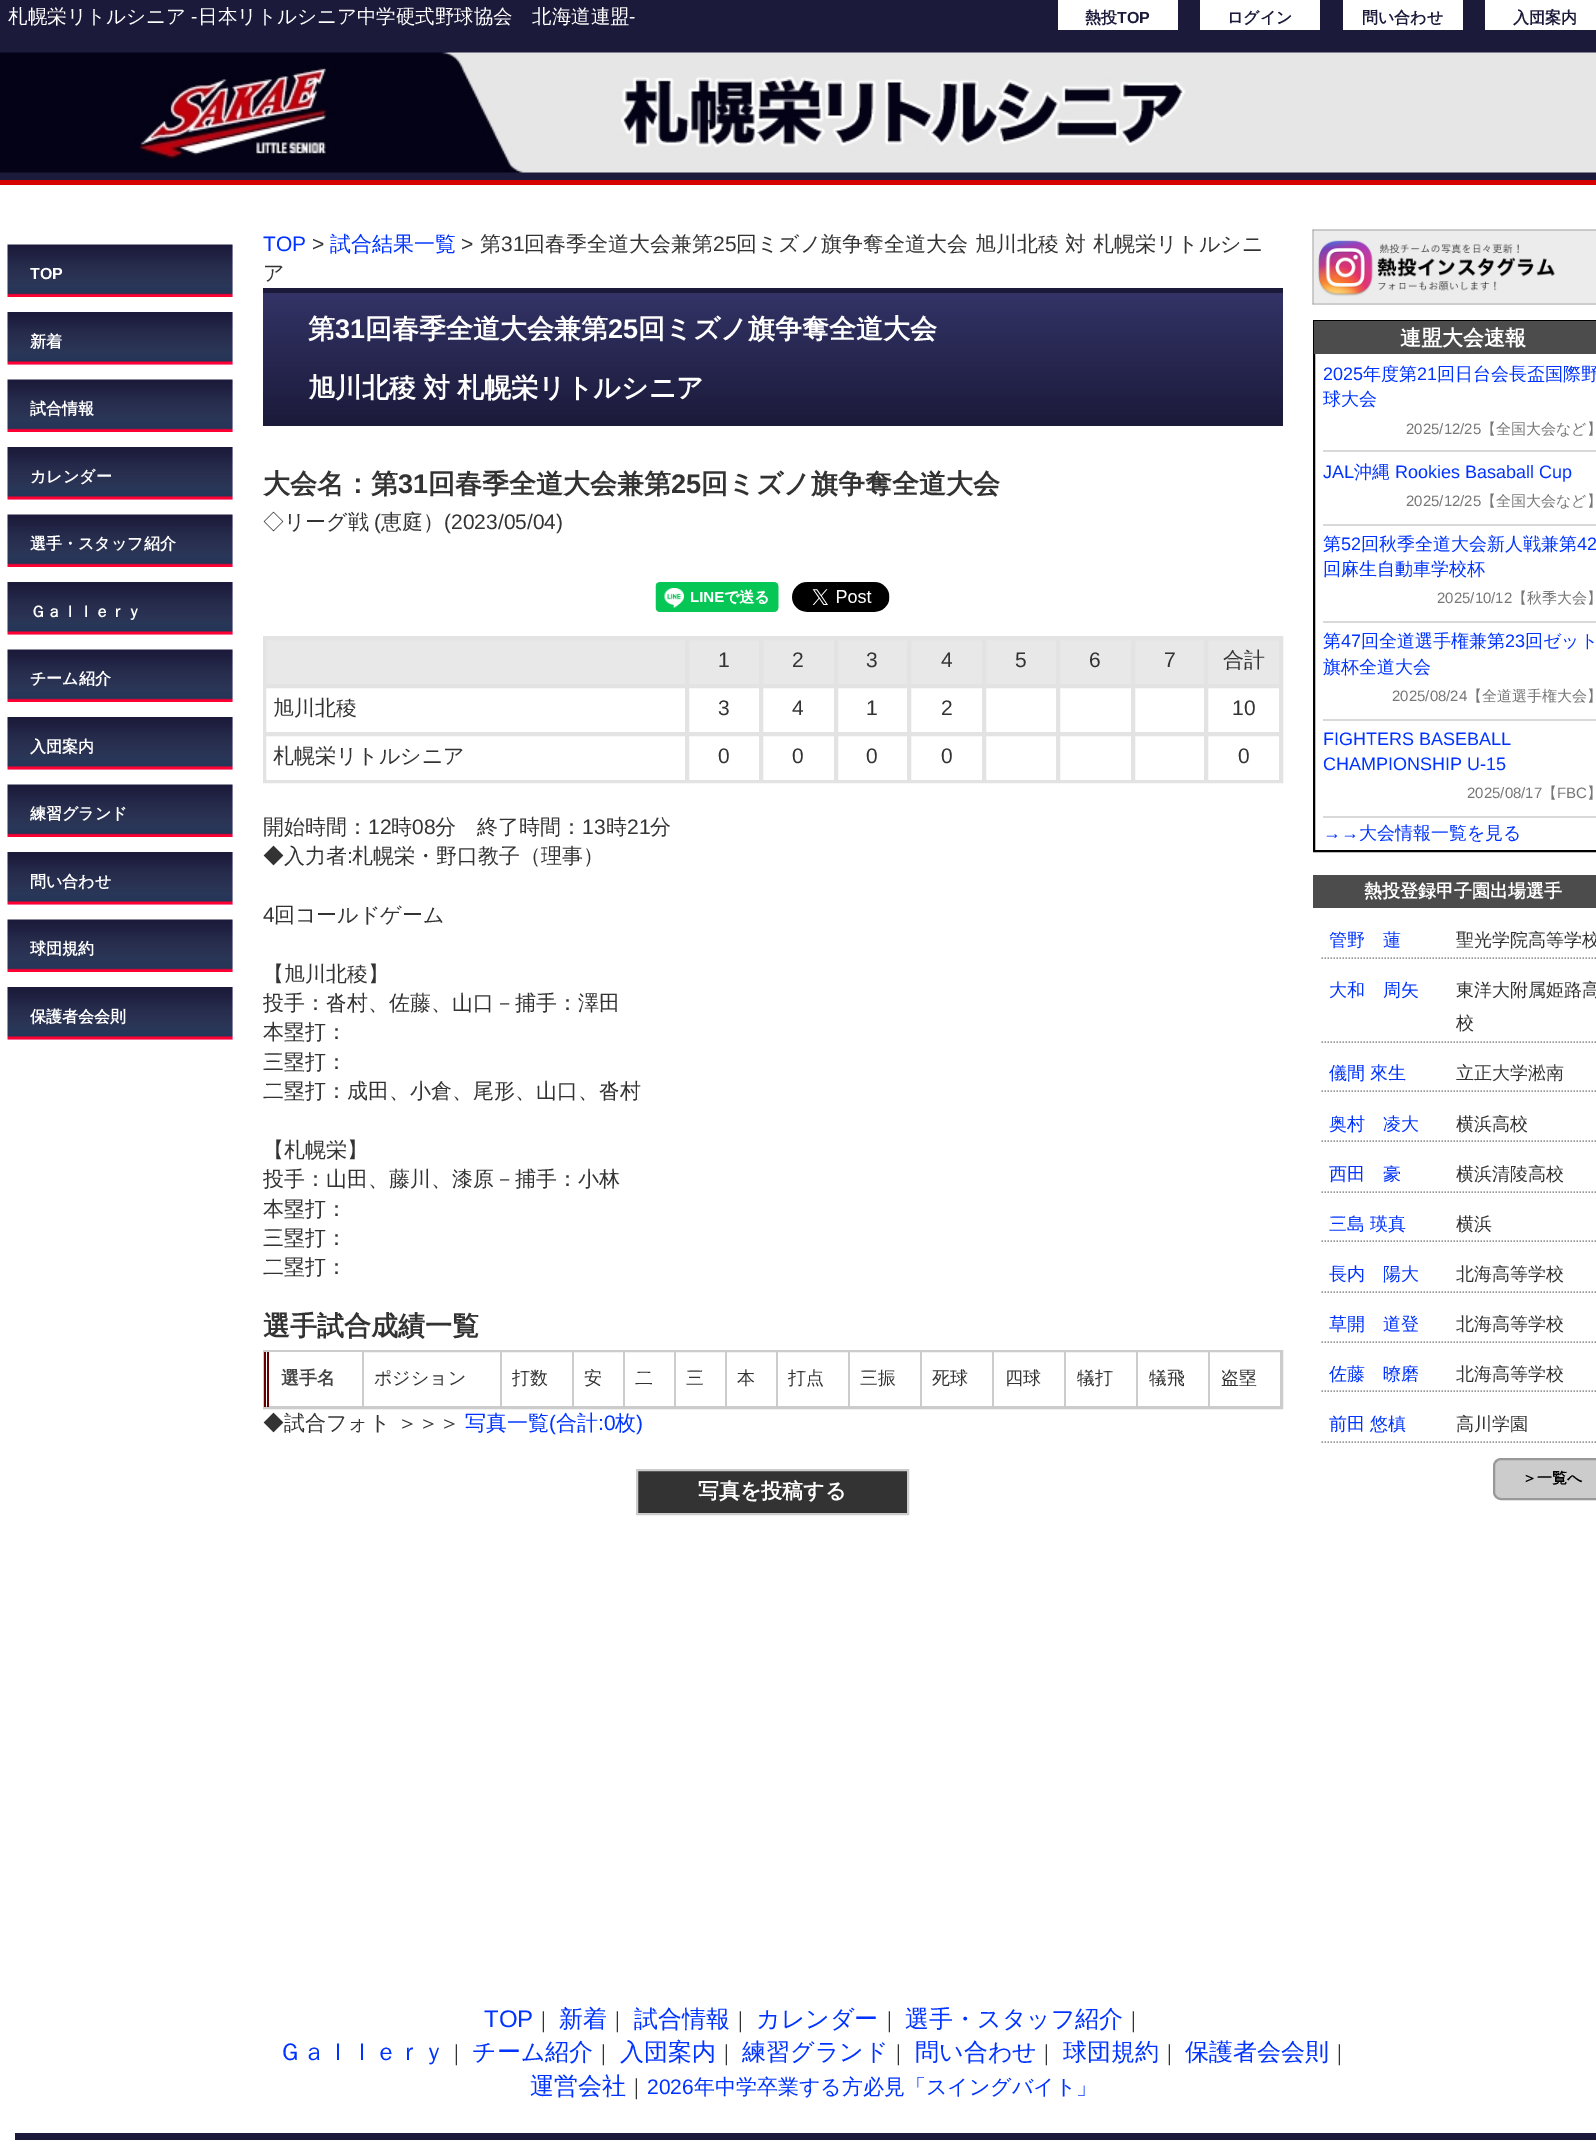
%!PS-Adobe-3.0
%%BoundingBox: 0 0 1596 2140
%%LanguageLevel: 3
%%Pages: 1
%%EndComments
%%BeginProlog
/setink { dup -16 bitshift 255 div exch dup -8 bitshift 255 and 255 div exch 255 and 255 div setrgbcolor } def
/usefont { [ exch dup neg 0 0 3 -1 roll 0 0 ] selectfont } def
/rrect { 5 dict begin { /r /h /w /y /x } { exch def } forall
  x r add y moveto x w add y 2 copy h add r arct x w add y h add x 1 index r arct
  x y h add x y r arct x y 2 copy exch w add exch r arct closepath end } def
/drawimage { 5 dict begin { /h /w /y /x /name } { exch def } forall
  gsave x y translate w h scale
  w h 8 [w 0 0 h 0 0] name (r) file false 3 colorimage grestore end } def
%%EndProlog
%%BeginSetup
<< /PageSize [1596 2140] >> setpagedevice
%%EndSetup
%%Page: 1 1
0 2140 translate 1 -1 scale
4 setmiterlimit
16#1B1A3A setink
0 0 1596 2140 rectfill
16#D60303 setink
0 180 1596 5 rectfill
/WenQuanYiZenHei-Medium 19.5 usefont
16#FFFFFF setink
8 23 moveto (札幌栄リトルシニア) show
/LiberationSans-Regular 19.5 usefont
191 23 moveto (-) show
/WenQuanYiZenHei-Medium 19.5 usefont
198 23 moveto (日本リトルシニア中学硬式野球協会　北海道連盟) show
/LiberationSans-Regular 19.5 usefont
629 23 moveto (-) show
1058 0 120 30 rectfill
/WenQuanYiZenHei-Bold 16 usefont
16#1B1A3A setink
1085 23 moveto (熱投) show
/LiberationSans-Bold 16 usefont
1117 23 moveto (TOP) show
16#FFFFFF setink
1200 0 120 30 rectfill
/WenQuanYiZenHei-Bold 16 usefont
16#1B1A3A setink
1227 23 moveto (ログイン) show
16#FFFFFF setink
1343 0 120 30 rectfill
16#1B1A3A setink
1362 23 moveto (問い合わせ) show
16#FFFFFF setink
1485 0 111 30 rectfill
16#1B1A3A setink
1513 23 moveto (入団案内) show
(img1.raw) 0 52 1596 121 drawimage
16#FFFFFF setink
0 185 1596 1955 rectfill
16#E6D9FA setink
232 245 1 52 rectfill
(img2.raw) 7 244 226 53 drawimage
/LiberationSans-Bold 16 usefont
16#FFFFFF setink
30 279 moveto (TOP) show
16#E6D9FA setink
8 312 225 53 rectfill
(img3.raw) 7 312 226 53 drawimage
/WenQuanYiZenHei-Bold 16 usefont
16#FFFFFF setink
30 347 moveto (新着) show
16#E6D9FA setink
232 380 1 52 rectfill
(img2.raw) 7 379 226 53 drawimage
16#FFFFFF setink
30 414 moveto (試合情報) show
16#E6D9FA setink
8 447 225 53 rectfill
(img3.raw) 7 447 226 53 drawimage
16#FFFFFF setink
30 482 moveto (カレンダー) show
16#E6D9FA setink
232 515 1 52 rectfill
(img2.raw) 7 514 226 53 drawimage
16#FFFFFF setink
30 549 moveto (選手・スタッフ紹介) show
16#E6D9FA setink
8 582 225 53 rectfill
(img3.raw) 7 582 226 53 drawimage
16#FFFFFF setink
30 617 moveto (Ｇａｌｌｅｒｙ) show
16#E6D9FA setink
232 650 1 52 rectfill
(img2.raw) 7 649 226 53 drawimage
16#FFFFFF setink
30 684 moveto (チーム紹介) show
16#E6D9FA setink
8 717 225 53 rectfill
(img3.raw) 7 717 226 53 drawimage
16#FFFFFF setink
30 752 moveto (入団案内) show
16#E6D9FA setink
232 785 1 52 rectfill
(img2.raw) 7 784 226 53 drawimage
16#FFFFFF setink
30 819 moveto (練習グランド) show
16#E6D9FA setink
8 852 225 53 rectfill
(img3.raw) 7 852 226 53 drawimage
16#FFFFFF setink
30 887 moveto (問い合わせ) show
16#E6D9FA setink
232 920 1 52 rectfill
(img2.raw) 7 919 226 53 drawimage
16#FFFFFF setink
30 954 moveto (球団規約) show
16#E6D9FA setink
8 987 225 53 rectfill
(img3.raw) 7 987 226 53 drawimage
16#FFFFFF setink
30 1022 moveto (保護者会会則) show
/LiberationSans-Regular 21 usefont
16#0033FF setink
263 251 moveto (TOP) show
16#333333 setink
312 251 moveto (>) show
/WenQuanYiZenHei-Medium 21 usefont
16#0033FF setink
330 251 moveto (試合結果一覧) show
/LiberationSans-Regular 21 usefont
16#333333 setink
461 251 moveto (>) show
/WenQuanYiZenHei-Medium 21 usefont
480 251 moveto (第) show
/LiberationSans-Regular 21 usefont
501 251 moveto (31) show
/WenQuanYiZenHei-Medium 21 usefont
524 251 moveto (回春季全道大会兼第) show
/LiberationSans-Regular 21 usefont
713 251 moveto (25) show
/WenQuanYiZenHei-Medium 21 usefont
[
    [(回ミズノ旗争奪全道大会) 736 251]
    [(旭川北稜 対 札幌栄リトルシニ) 975 251]
    [(ア) 263 280]
] { aload pop moveto show } forall
gsave 263 288 moveto 1283 288 lineto 1283 293 lineto 263 293 lineto closepath clip newpath
<< /ShadingType 2 /ColorSpace /DeviceRGB /Coords [263 159 263 293] /Extend [true true] /Function << /FunctionType 2 /Domain [0 1] /C0 [0.2 0.2 0.4] /C1 [0.106 0.102 0.227] /N 1 >> >> shfill grestore
gsave 263 293 moveto 1283 293 lineto 1283 426 lineto 263 426 lineto closepath clip newpath
<< /ShadingType 2 /ColorSpace /DeviceRGB /Coords [263 293 263 426] /Extend [true true] /Function << /FunctionType 2 /Domain [0 1] /C0 [0.2 0.2 0.4] /C1 [0.106 0.102 0.227] /N 1 >> >> shfill grestore
/WenQuanYiZenHei-Bold 27 usefont
16#FFFFFF setink
308 338 moveto (第) show
/LiberationSans-Bold 27 usefont
335 338 moveto (31) show
/WenQuanYiZenHei-Bold 27 usefont
365 338 moveto (回春季全道大会兼第) show
/LiberationSans-Bold 27 usefont
608 338 moveto (25) show
/WenQuanYiZenHei-Bold 27 usefont
638 338 moveto (回ミズノ旗争奪全道大会) show
308 397 moveto -1 0 32 (旭川北稜 対 札幌栄リトルシニア) widthshow
16#333333 setink
263 493 moveto (大会名：第) show
/LiberationSans-Bold 27 usefont
398 493 moveto (31) show
/WenQuanYiZenHei-Bold 27 usefont
428 493 moveto (回春季全道大会兼第) show
/LiberationSans-Bold 27 usefont
671 493 moveto (25) show
/WenQuanYiZenHei-Bold 27 usefont
701 493 moveto (回ミズノ旗争奪全道大会) show
/WenQuanYiZenHei-Medium 21 usefont
263 529 moveto (◇リーグ戦) show
/LiberationSans-Regular 21 usefont
374 529 moveto (\() show
/WenQuanYiZenHei-Medium 21 usefont
381 529 moveto (恵庭）) show
/LiberationSans-Regular 21 usefont
444 529 moveto (\(2023/05/04\)) show
(img4.raw) 655 582 124 30 drawimage
(img5.raw) 792 582 98 30 drawimage
16#E3E3E3 setink
2 setlinewidth
264 637 1018 145 rectstroke
16#E8E8E8 setink
265 639 moveto 686 639 lineto 686 685 lineto 265 685 lineto closepath gsave fill grestore
16#E3E3E3 setink
stroke
16#E8E8E8 setink
688 639 moveto 760 639 lineto 760 685 lineto 688 685 lineto closepath gsave fill grestore
16#E3E3E3 setink
stroke
16#333333 setink
718 667 moveto (1) show
16#E8E8E8 setink
762 639 moveto 835 639 lineto 835 685 lineto 762 685 lineto closepath gsave fill grestore
16#E3E3E3 setink
stroke
16#333333 setink
792 667 moveto (2) show
16#E8E8E8 setink
837 639 moveto 908 639 lineto 908 685 lineto 837 685 lineto closepath gsave fill grestore
16#E3E3E3 setink
stroke
16#333333 setink
866 667 moveto (3) show
16#E8E8E8 setink
910 639 moveto 983 639 lineto 983 685 lineto 910 685 lineto closepath gsave fill grestore
16#E3E3E3 setink
stroke
16#333333 setink
941 667 moveto (4) show
16#E8E8E8 setink
985 639 moveto 1057 639 lineto 1057 685 lineto 985 685 lineto closepath gsave fill grestore
16#E3E3E3 setink
stroke
16#333333 setink
1015 667 moveto (5) show
16#E8E8E8 setink
1059 639 moveto 1132 639 lineto 1132 685 lineto 1059 685 lineto closepath gsave fill grestore
16#E3E3E3 setink
stroke
16#333333 setink
1089 667 moveto (6) show
16#E8E8E8 setink
1134 639 moveto 1205 639 lineto 1205 685 lineto 1134 685 lineto closepath gsave fill grestore
16#E3E3E3 setink
stroke
16#333333 setink
1164 667 moveto (7) show
16#E8E8E8 setink
1207 639 moveto 1280 639 lineto 1280 685 lineto 1207 685 lineto closepath gsave fill grestore
16#E3E3E3 setink
stroke
/WenQuanYiZenHei-Medium 21 usefont
16#333333 setink
1223 667 moveto (合計) show
16#E3E3E3 setink
265 687 421 46 rectstroke
16#333333 setink
273 715 moveto (旭川北稜) show
16#E3E3E3 setink
688 687 72 46 rectstroke
/LiberationSans-Regular 21 usefont
16#333333 setink
718 715 moveto (3) show
16#E3E3E3 setink
762 687 73 46 rectstroke
16#333333 setink
792 715 moveto (4) show
16#E3E3E3 setink
837 687 71 46 rectstroke
16#333333 setink
866 715 moveto (1) show
16#E3E3E3 setink
910 687 73 46 rectstroke
16#333333 setink
941 715 moveto (2) show
16#E3E3E3 setink
985 687 72 46 rectstroke
1059 687 73 46 rectstroke
1134 687 71 46 rectstroke
1207 687 73 46 rectstroke
16#333333 setink
1232 715 moveto (10) show
16#E3E3E3 setink
265 735 421 46 rectstroke
/WenQuanYiZenHei-Medium 21 usefont
16#333333 setink
273 763 moveto (札幌栄リトルシニア) show
16#E3E3E3 setink
688 735 72 46 rectstroke
/LiberationSans-Regular 21 usefont
16#333333 setink
718 763 moveto (0) show
16#E3E3E3 setink
762 735 73 46 rectstroke
16#333333 setink
792 763 moveto (0) show
16#E3E3E3 setink
837 735 71 46 rectstroke
16#333333 setink
866 763 moveto (0) show
16#E3E3E3 setink
910 735 73 46 rectstroke
16#333333 setink
941 763 moveto (0) show
16#E3E3E3 setink
985 735 72 46 rectstroke
1059 735 73 46 rectstroke
1134 735 71 46 rectstroke
1207 735 73 46 rectstroke
16#333333 setink
1238 763 moveto (0) show
/WenQuanYiZenHei-Medium 21 usefont
263 834 moveto (開始時間：) show
/LiberationSans-Regular 21 usefont
368 834 moveto (12) show
/WenQuanYiZenHei-Medium 21 usefont
391 834 moveto (時) show
/LiberationSans-Regular 21 usefont
412 834 moveto (08) show
/WenQuanYiZenHei-Medium 21 usefont
435 834 moveto (分　終了時間：) show
/LiberationSans-Regular 21 usefont
582 834 moveto (13) show
/WenQuanYiZenHei-Medium 21 usefont
606 834 moveto (時) show
/LiberationSans-Regular 21 usefont
627 834 moveto (21) show
/WenQuanYiZenHei-Medium 21 usefont
650 834 moveto (分) show
263 863 moveto (◆入力者) show
/LiberationSans-Regular 21 usefont
347 863 moveto (:) show
/WenQuanYiZenHei-Medium 21 usefont
352 863 moveto (札幌栄・野口教子（理事）) show
/LiberationSans-Regular 21 usefont
263 922 moveto (4) show
/WenQuanYiZenHei-Medium 21 usefont
[
    [(回コールドゲーム) 274 922]
    [(【旭川北稜】) 263 981]
    [(投手：沓村、佐藤、山口－捕手：澤田) 263 1010]
    [(本塁打：) 263 1039]
    [(三塁打：) 263 1069]
    [(二塁打：成田、小倉、尾形、山口、沓村) 263 1098]
    [(【札幌栄】) 263 1157]
    [(投手：山田、藤川、漆原－捕手：小林) 263 1186]
    [(本塁打：) 263 1216]
    [(三塁打：) 263 1245]
    [(二塁打：) 263 1274]
] { aload pop moveto show } forall
/WenQuanYiZenHei-Bold 27 usefont
263 1335 moveto (選手試合成績一覧) show
16#CCCCCC setink
264 1351 1018 57 rectstroke
16#FFFFFF setink
264 1352 moveto 363 1352 lineto 362 1353 lineto 268 1353 lineto closepath fill
16#CCCCCC setink
362 1352 2 55 rectfill
363 1407 moveto 264 1407 lineto 268 1406 lineto 362 1406 lineto closepath fill
16#660000 setink
264 1352 2 55 rectfill
267 1352 2 55 rectfill
/WenQuanYiZenHei-Bold 18 usefont
16#444444 setink
281 1384 moveto (選手名) show
16#CCCCCC setink
500 1352 2 55 rectfill
363 1406 138 1 rectfill
/WenQuanYiZenHei-Medium 18 usefont
16#333333 setink
374 1384 moveto (ポジション) show
16#CCCCCC setink
572 1352 2 55 rectfill
501 1406 72 1 rectfill
16#333333 setink
512 1384 moveto (打数) show
16#CCCCCC setink
623 1352 2 55 rectfill
573 1406 51 1 rectfill
16#333333 setink
584 1384 moveto (安) show
16#CCCCCC setink
674 1352 2 55 rectfill
624 1406 51 1 rectfill
16#333333 setink
635 1384 moveto (二) show
16#CCCCCC setink
725 1352 2 55 rectfill
675 1406 51 1 rectfill
16#333333 setink
686 1384 moveto (三) show
16#CCCCCC setink
776 1352 2 55 rectfill
726 1406 51 1 rectfill
16#333333 setink
737 1384 moveto (本) show
16#CCCCCC setink
848 1352 2 55 rectfill
777 1406 72 1 rectfill
16#333333 setink
788 1384 moveto (打点) show
16#CCCCCC setink
920 1352 2 55 rectfill
849 1406 72 1 rectfill
16#333333 setink
860 1384 moveto (三振) show
16#CCCCCC setink
992 1352 2 55 rectfill
921 1406 72 1 rectfill
16#333333 setink
932 1384 moveto (死球) show
16#CCCCCC setink
1064 1352 2 55 rectfill
993 1406 72 1 rectfill
16#333333 setink
1005 1384 moveto (四球) show
16#CCCCCC setink
1136 1352 2 55 rectfill
1065 1406 72 1 rectfill
16#333333 setink
1077 1384 moveto (犠打) show
16#CCCCCC setink
1208 1352 2 55 rectfill
1137 1406 72 1 rectfill
16#333333 setink
1149 1384 moveto (犠飛) show
16#CCCCCC setink
1280 1352 1 55 rectfill
1209 1406 72 1 rectfill
16#333333 setink
1221 1384 moveto (盗塁) show
/WenQuanYiZenHei-Medium 21 usefont
263 1430 moveto (◆試合フォト ＞＞＞) show
16#0033FF setink
465 1430 moveto (写真一覧) show
/LiberationSans-Regular 21 usefont
549 1430 moveto (\() show
/WenQuanYiZenHei-Medium 21 usefont
556 1430 moveto (合計) show
/LiberationSans-Regular 21 usefont
598 1430 moveto (:0) show
/WenQuanYiZenHei-Medium 21 usefont
615 1430 moveto (枚) show
/LiberationSans-Regular 21 usefont
636 1430 moveto (\)) show
16#333333 setink
637 1470 moveto 908 1470 lineto 908 1514 lineto 637 1514 lineto closepath gsave fill grestore
16#CCCCCC setink
stroke
/WenQuanYiZenHei-Bold 21 usefont
16#FFFFFF setink
698 1498 moveto (写真を投稿する) show
(img6.raw) 1312 229 284 76 drawimage
16#000000 setink
1314 321 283 530 rectstroke
16#4C4C4C setink
1314 321 282 33 rectfill
16#FFFFFF setink
1400 345 moveto (連盟大会速報) show
16#D9D9D9 setink
1323 450 273 2 rectfill
/LiberationSans-Regular 18 usefont
16#0033FF setink
1323 380 moveto (2025) show
/WenQuanYiZenHei-Medium 18 usefont
1363 380 moveto (年度第) show
/LiberationSans-Regular 18 usefont
1417 380 moveto (21) show
/WenQuanYiZenHei-Medium 18 usefont
1437 380 moveto (回日台会長盃国際野) show
1323 405 moveto (球大会) show
/LiberationSans-Regular 15 usefont
16#777777 setink
1406 434 moveto (2025/12/25) show
/WenQuanYiZenHei-Medium 15 usefont
1481 434 moveto (【全国大会など】) show
16#D9D9D9 setink
1323 524 273 2 rectfill
/LiberationSans-Regular 18 usefont
16#0033FF setink
1323 478 moveto (JAL) show
/WenQuanYiZenHei-Medium 18 usefont
1354 478 moveto (沖縄) show
/LiberationSans-Regular 18 usefont
1395 478 moveto (Rookies Basaball Cup) show
/LiberationSans-Regular 15 usefont
16#777777 setink
1406 506 moveto (2025/12/25) show
/WenQuanYiZenHei-Medium 15 usefont
1481 506 moveto (【全国大会など】) show
16#D9D9D9 setink
1323 621 273 2 rectfill
/WenQuanYiZenHei-Medium 18 usefont
16#0033FF setink
1323 550 moveto (第) show
/LiberationSans-Regular 18 usefont
1341 550 moveto (52) show
/WenQuanYiZenHei-Medium 18 usefont
1361 550 moveto (回秋季全道大会新人戦兼第) show
/LiberationSans-Regular 18 usefont
1577 550 moveto (42) show
/WenQuanYiZenHei-Medium 18 usefont
1323 575 moveto (回麻生自動車学校杯) show
/LiberationSans-Regular 15 usefont
16#777777 setink
1437 603 moveto (2025/10/12) show
/WenQuanYiZenHei-Medium 15 usefont
1512 603 moveto (【秋季大会】) show
16#D9D9D9 setink
1323 719 273 2 rectfill
/WenQuanYiZenHei-Medium 18 usefont
16#0033FF setink
1323 647 moveto (第) show
/LiberationSans-Regular 18 usefont
1341 647 moveto (47) show
/WenQuanYiZenHei-Medium 18 usefont
1361 647 moveto (回全道選手権兼第) show
/LiberationSans-Regular 18 usefont
1505 647 moveto (23) show
/WenQuanYiZenHei-Medium 18 usefont
1525 647 moveto (回ゼット) show
1323 673 moveto (旗杯全道大会) show
/LiberationSans-Regular 15 usefont
16#777777 setink
1392 701 moveto (2025/08/24) show
/WenQuanYiZenHei-Medium 15 usefont
1467 701 moveto (【全道選手権大会】) show
16#D9D9D9 setink
1323 816 273 2 rectfill
/LiberationSans-Regular 18 usefont
16#0033FF setink
1323 745 moveto (FIGHTERS BASEBALL) show
1323 770 moveto (CHAMPIONSHIP U-15) show
/LiberationSans-Regular 15 usefont
16#777777 setink
1467 798 moveto (2025/08/17) show
/WenQuanYiZenHei-Medium 15 usefont
1542 798 moveto (【) show
/LiberationSans-Regular 15 usefont
1557 798 moveto (FBC) show
/WenQuanYiZenHei-Medium 15 usefont
1587 798 moveto (】) show
/LiberationSans-Regular 18 usefont
16#0033FF setink
1323 839 moveto (→→) show
/WenQuanYiZenHei-Medium 18 usefont
1359 839 moveto (大会情報一覧を見る) show
16#4C4C4C setink
1313 875 283 33 rectfill
/WenQuanYiZenHei-Bold 18 usefont
16#FFFFFF setink
1364 897 moveto (熱投登録甲子園出場選手) show
16#999999 setink
1.5 setlinewidth
[1.5 1.5] 0 setdash
1321.5 958 moveto 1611 958 lineto stroke
/WenQuanYiZenHei-Medium 18 usefont
16#0033FF setink
1329 946 moveto (管野　蓮) show
16#333333 setink
1456 946 moveto (聖光学院高等学校) show
16#999999 setink
1321.5 1042 moveto 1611 1042 lineto stroke
16#0033FF setink
1329 996 moveto (大和　周矢) show
16#333333 setink
1456 996 moveto (東洋大附属姫路高) show
1456 1029 moveto (校) show
16#999999 setink
1321.5 1091 moveto 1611 1091 lineto stroke
16#0033FF setink
1329 1079 moveto (儀間 來生) show
16#333333 setink
1456 1079 moveto (立正大学淞南) show
16#999999 setink
1321.5 1141 moveto 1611 1141 lineto stroke
16#0033FF setink
1329 1130 moveto (奥村　凌大) show
16#333333 setink
1456 1130 moveto (横浜高校) show
16#999999 setink
1321.5 1192 moveto 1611 1192 lineto stroke
16#0033FF setink
1329 1180 moveto (西田　豪) show
16#333333 setink
1456 1180 moveto (横浜清陵高校) show
16#999999 setink
1321.5 1241 moveto 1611 1241 lineto stroke
16#0033FF setink
1329 1230 moveto (三島 瑛真) show
16#333333 setink
1456 1230 moveto (横浜) show
16#999999 setink
1321.5 1292 moveto 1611 1292 lineto stroke
16#0033FF setink
1329 1280 moveto (長内　陽大) show
16#333333 setink
1456 1280 moveto (北海高等学校) show
16#999999 setink
1321.5 1342 moveto 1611 1342 lineto stroke
16#0033FF setink
1329 1330 moveto (草開　道登) show
16#333333 setink
1456 1330 moveto (北海高等学校) show
16#999999 setink
1321.5 1391 moveto 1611 1391 lineto stroke
16#0033FF setink
1329 1380 moveto (佐藤　暸磨) show
16#333333 setink
1456 1380 moveto (北海高等学校) show
16#999999 setink
1321.5 1442 moveto 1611 1442 lineto stroke
16#0033FF setink
1329 1430 moveto (前田 悠槙) show
16#333333 setink
1456 1430 moveto (高川学園) show
16#CCCCCC setink
1494 1459 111 40 7 rrect gsave fill grestore
16#999999 setink
2 setlinewidth
[] 0 setdash
stroke
/WenQuanYiZenHei-Bold 15 usefont
16#000000 setink
1522 1483 moveto (＞一覧へ) show
/LiberationSans-Regular 24 usefont
16#0033FF setink
484 2027 moveto (TOP) show
/WenQuanYiZenHei-Medium 21 usefont
16#333333 setink
533 2027 moveto (｜) show
/WenQuanYiZenHei-Medium 24 usefont
16#0033FF setink
559 2027 moveto (新着) show
/WenQuanYiZenHei-Medium 21 usefont
16#333333 setink
607 2027 moveto (｜) show
/WenQuanYiZenHei-Medium 24 usefont
16#0033FF setink
634 2027 moveto (試合情報) show
/WenQuanYiZenHei-Medium 21 usefont
16#333333 setink
730 2027 moveto (｜) show
/WenQuanYiZenHei-Medium 24 usefont
16#0033FF setink
756 2027 moveto (カレンダー) show
/WenQuanYiZenHei-Medium 21 usefont
16#333333 setink
879 2027 moveto (｜) show
/WenQuanYiZenHei-Medium 24 usefont
16#0033FF setink
905 2027 moveto (選手・スタッフ紹介) show
/WenQuanYiZenHei-Medium 21 usefont
16#333333 setink
1123 2027 moveto (｜) show
/WenQuanYiZenHei-Medium 24 usefont
16#0033FF setink
278 2060 moveto (Ｇａｌｌｅｒｙ) show
/WenQuanYiZenHei-Medium 21 usefont
16#333333 setink
446 2060 moveto (｜) show
/WenQuanYiZenHei-Medium 24 usefont
16#0033FF setink
472 2060 moveto (チーム紹介) show
/WenQuanYiZenHei-Medium 21 usefont
16#333333 setink
593 2060 moveto (｜) show
/WenQuanYiZenHei-Medium 24 usefont
16#0033FF setink
620 2060 moveto (入団案内) show
/WenQuanYiZenHei-Medium 21 usefont
16#333333 setink
716 2060 moveto (｜) show
/WenQuanYiZenHei-Medium 24 usefont
16#0033FF setink
742 2060 moveto (練習グランド) show
/WenQuanYiZenHei-Medium 21 usefont
16#333333 setink
888 2060 moveto (｜) show
/WenQuanYiZenHei-Medium 24 usefont
16#0033FF setink
915 2060 moveto (問い合わせ) show
/WenQuanYiZenHei-Medium 21 usefont
16#333333 setink
1036 2060 moveto (｜) show
/WenQuanYiZenHei-Medium 24 usefont
16#0033FF setink
1063 2060 moveto (球団規約) show
/WenQuanYiZenHei-Medium 21 usefont
16#333333 setink
1159 2060 moveto (｜) show
/WenQuanYiZenHei-Medium 24 usefont
16#0033FF setink
1185 2060 moveto (保護者会会則) show
/WenQuanYiZenHei-Medium 21 usefont
16#333333 setink
1329 2060 moveto (｜) show
/WenQuanYiZenHei-Medium 24 usefont
16#0033FF setink
530 2094 moveto (運営会社) show
/WenQuanYiZenHei-Medium 21 usefont
16#333333 setink
626 2094 moveto (｜) show
/LiberationSans-Regular 21 usefont
16#0033FF setink
647 2094 moveto (2026) show
/WenQuanYiZenHei-Medium 21 usefont
694 2094 moveto (年中学卒業する方必見「スイングバイト」) show
16#1B1A3A setink
15 2133 1581 7 rectfill
showpage
%%EOF
